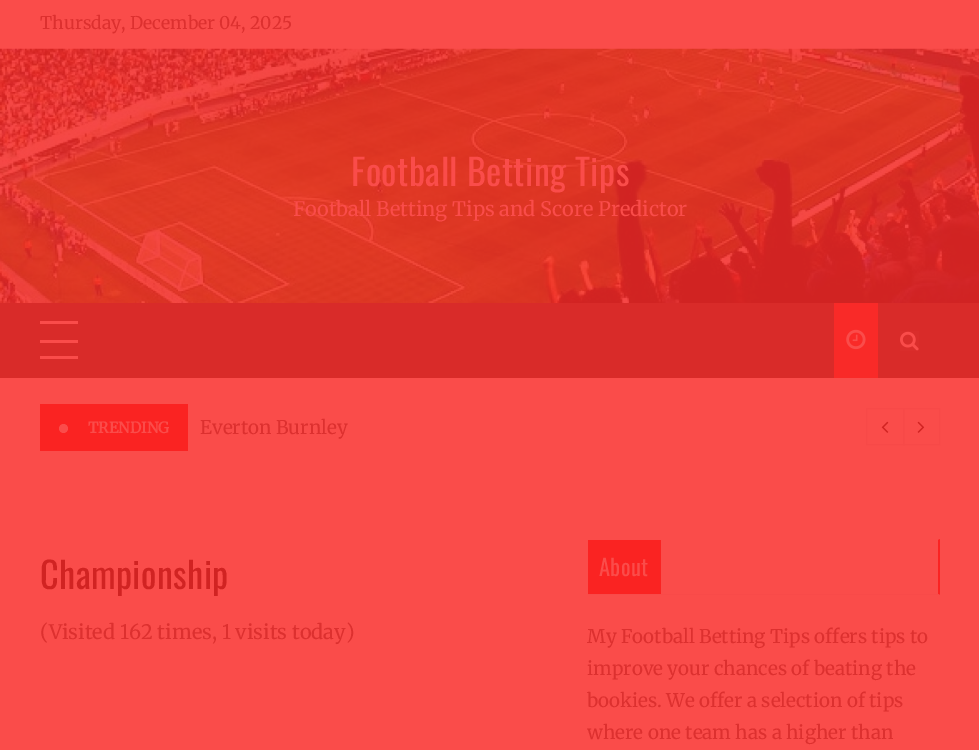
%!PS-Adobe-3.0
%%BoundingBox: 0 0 979 750
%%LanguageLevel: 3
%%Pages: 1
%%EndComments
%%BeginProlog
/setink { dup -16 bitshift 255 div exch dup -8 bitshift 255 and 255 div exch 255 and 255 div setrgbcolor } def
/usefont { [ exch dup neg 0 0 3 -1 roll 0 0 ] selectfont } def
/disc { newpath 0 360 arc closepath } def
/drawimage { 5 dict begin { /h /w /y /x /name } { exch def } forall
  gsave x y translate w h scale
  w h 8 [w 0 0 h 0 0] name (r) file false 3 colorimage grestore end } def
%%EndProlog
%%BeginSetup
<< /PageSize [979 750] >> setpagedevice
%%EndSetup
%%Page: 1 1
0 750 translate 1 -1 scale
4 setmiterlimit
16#FA4C4A setink
0 0 979 750 rectfill
/Merriweather-Light 17.5 usefont
16#DD302F setink
40 29 moveto (Thursday, December 04, 2025) show
(img1.raw) 0 48 979 255 drawimage
/Oswald-Regular 36.25 usefont
16#FA4C4A setink
351 186 moveto 0.4 0 (Football Betting Tips) ashow
/Merriweather-Light 20 usefont
293 216 moveto (Football Betting Tips and Score Predictor) show
[
    [0 303 979 75 16#D92B29]
    [40 321 38 3 16#FA4C4A]
    [40 340 38 3 16#FA4C4A]
    [40 356 38 3 16#FA4C4A]
    [834 303 44 75 16#F92A28]
] { aload pop setink rectfill } forall
(img2.raw) 846 329 20 21 drawimage
(img3.raw) 900 331 19 20 drawimage
16#FA2322 setink
40 404 148 47 rectfill
16#FA4C4A setink
63.5 428.5 4.5 disc fill
/Merriweather-Bold 15 usefont
88 433 moveto (TRENDING) show
/Merriweather-Light 18.75 usefont
16#DD302F setink
200 434 moveto (Everton Burnley) show
16#F74948 setink
866.5 408.5 37 36 rectstroke
(img4.raw) 881 421 8 12 drawimage
903.5 408.5 36 36 rectstroke
(img5.raw) 917 421 8 12 drawimage
/Oswald-Regular 36.25 usefont
16#D12322 setink
40 589 moveto 0.4 0 (Championship) ashow
/Merriweather-Light 20 usefont
16#DD302F setink
40 639 moveto (\(Visited 162 times, 1 visits today\)) show
16#FA2322 setink
940 539 moveto 940 595 lineto 938 594 lineto 938 540 lineto closepath fill
16#F84A49 setink
940 595 moveto 588 595 lineto 588 594 lineto 938 594 lineto closepath fill
16#FA2322 setink
588 540 73 54 rectfill
/Oswald-Regular 22.5 usefont
16#FA4C4A setink
599 576 moveto 0.4 0 (About) ashow
/Merriweather-Light 18.75 usefont
16#DD302F setink
[
    [(My Football Betting Tips offers tips to) 587 643]
    [(improve your chances of beating the) 587 675]
    [(bookies. We offer a selection of tips) 587 707]
    [(where one team has a higher than) 587 739]
] { aload pop moveto show } forall
showpage
%%EOF
